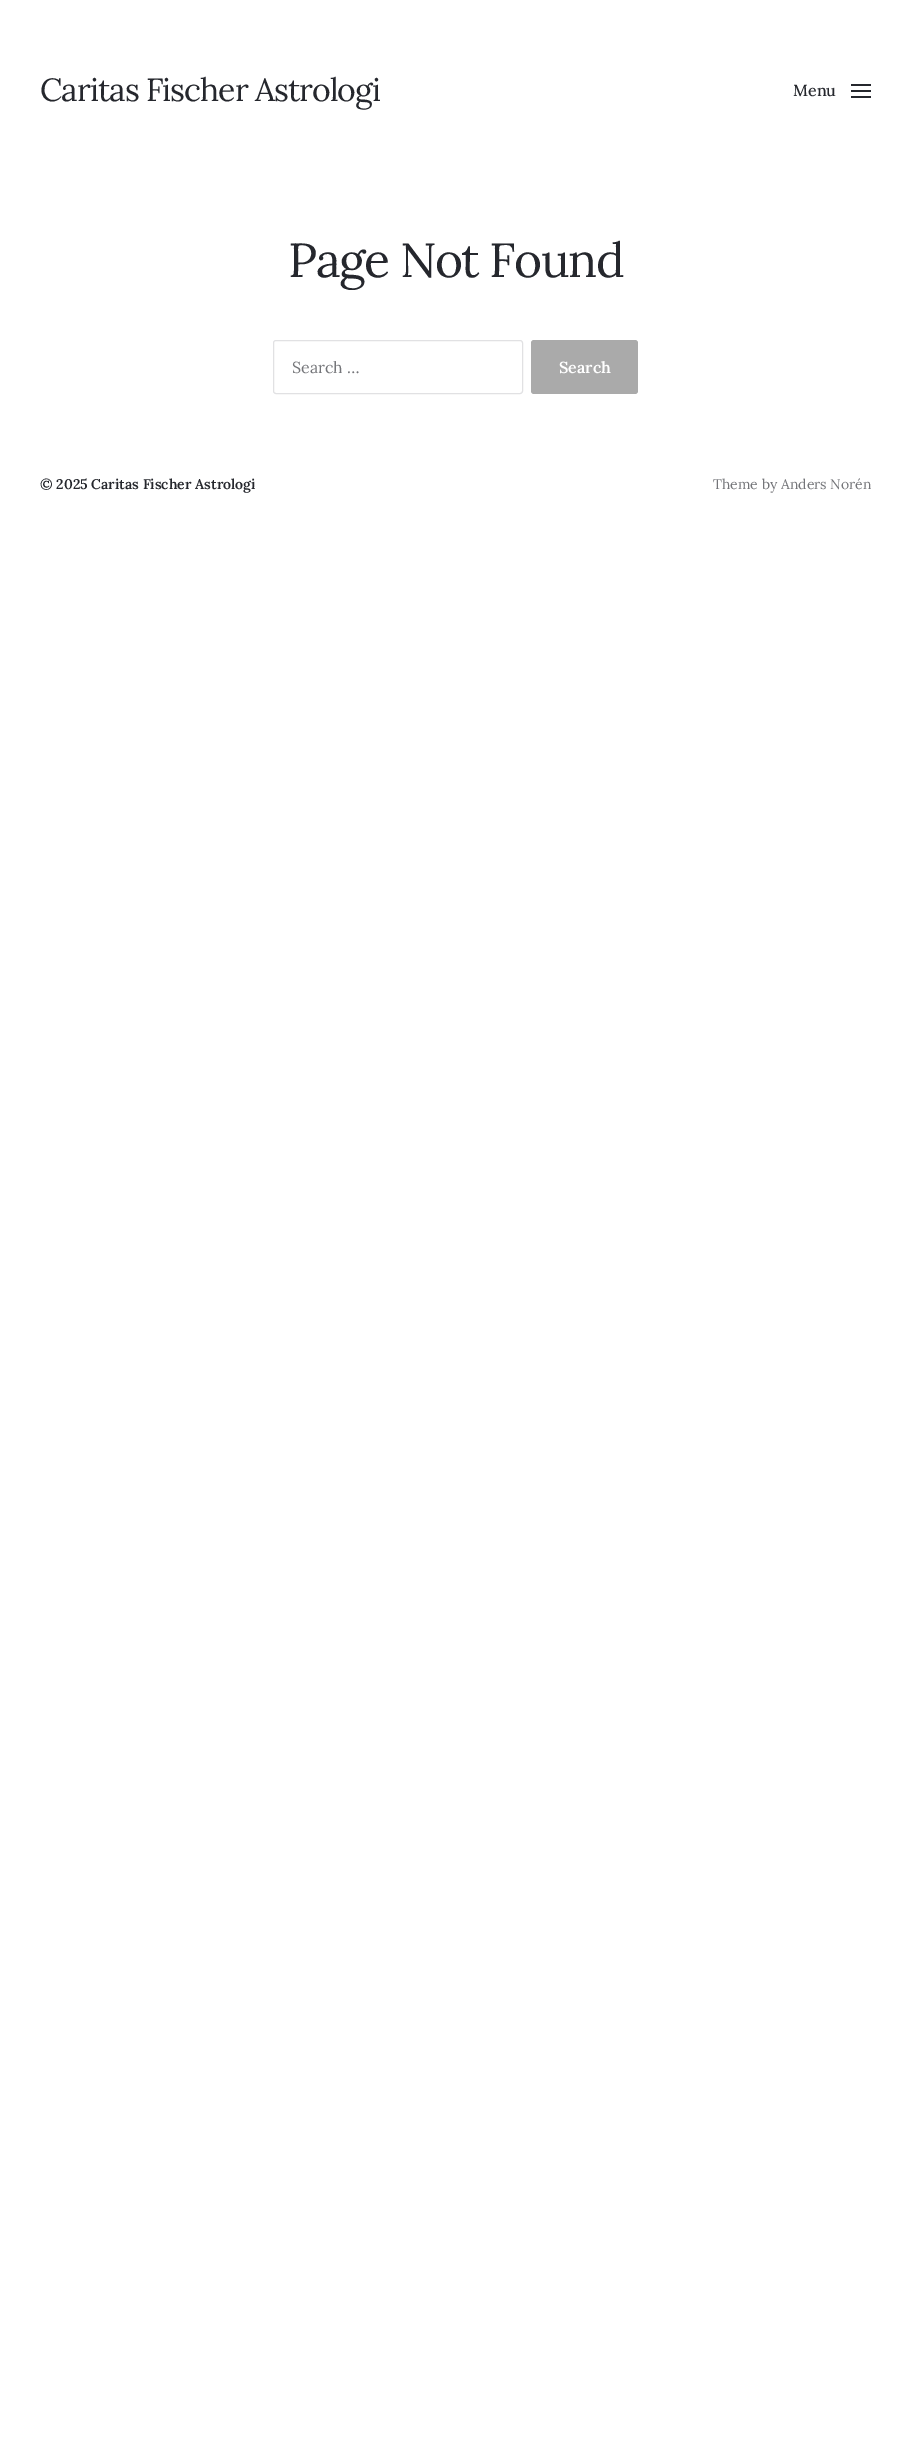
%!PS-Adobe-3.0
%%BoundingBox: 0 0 911 2456
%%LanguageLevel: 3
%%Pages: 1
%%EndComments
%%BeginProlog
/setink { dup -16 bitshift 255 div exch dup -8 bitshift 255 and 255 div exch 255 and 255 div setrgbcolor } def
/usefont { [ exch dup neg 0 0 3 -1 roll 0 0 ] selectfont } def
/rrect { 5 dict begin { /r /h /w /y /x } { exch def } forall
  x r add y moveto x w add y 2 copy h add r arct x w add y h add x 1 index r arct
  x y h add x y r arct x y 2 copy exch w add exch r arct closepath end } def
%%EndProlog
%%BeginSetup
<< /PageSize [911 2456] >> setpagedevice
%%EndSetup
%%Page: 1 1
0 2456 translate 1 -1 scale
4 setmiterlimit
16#FFFFFF setink
0 0 911 2456 rectfill
/Lora-Regular 32 usefont
16#25272D setink
40 101 moveto -1 0 (Caritas Fischer Astrologi) ashow
/Lora-Medium 16 usefont
793 96 moveto (Menu) show
[
    [851 84 20 2 16#25272D]
    [851 90 20 2 16#25272D]
    [851 96 20 2 16#25272D]
] { aload pop setink rectfill } forall
/Lora-Regular 48 usefont
288 277 moveto -1.5 0 (Page Not Found) ashow
16#E1E1E3 setink
273.5 340.5 249 53 2.5 rrect stroke
/Lora-Regular 16 usefont
16#747579 setink
292 373 moveto (Search …) show
16#AAAAAA setink
531 340 107 54 3 rrect fill
/Lora-SemiBold 16 usefont
16#FFFFFF setink
559 373 moveto (Search) show
/Lora-SemiBold 14 usefont
16#25272D setink
40 489 moveto (© 2025 Caritas Fischer Astrologi) show
/Lora-Regular 14 usefont
16#747579 setink
713 489 moveto (Theme by Anders Norén) show
showpage
%%EOF
